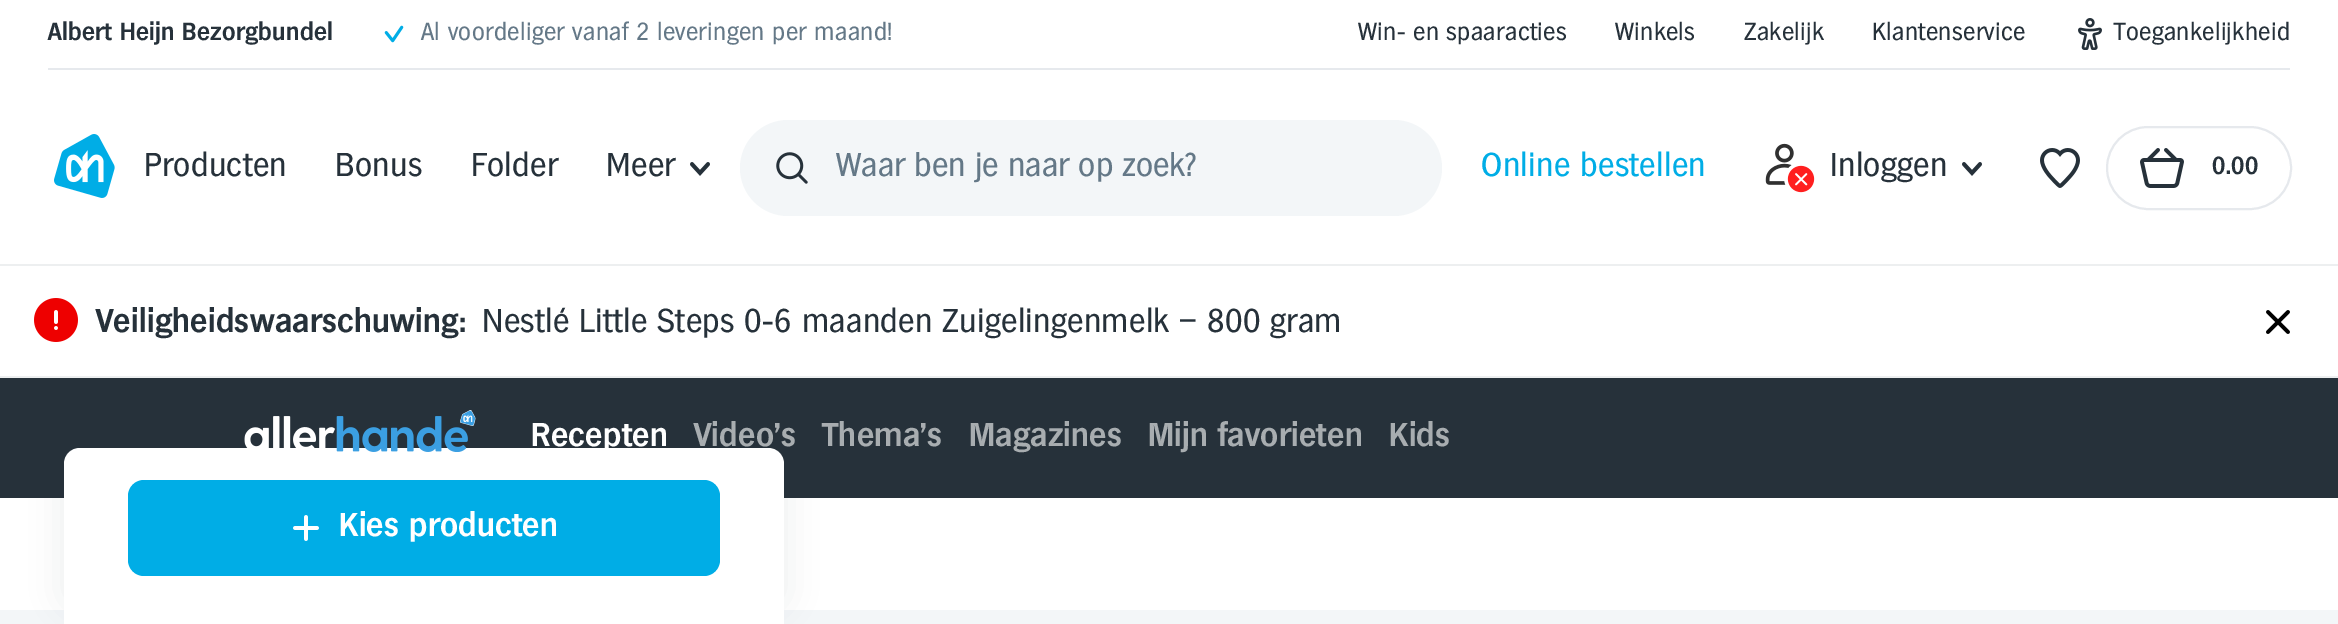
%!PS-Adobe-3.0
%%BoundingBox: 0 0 2338 624
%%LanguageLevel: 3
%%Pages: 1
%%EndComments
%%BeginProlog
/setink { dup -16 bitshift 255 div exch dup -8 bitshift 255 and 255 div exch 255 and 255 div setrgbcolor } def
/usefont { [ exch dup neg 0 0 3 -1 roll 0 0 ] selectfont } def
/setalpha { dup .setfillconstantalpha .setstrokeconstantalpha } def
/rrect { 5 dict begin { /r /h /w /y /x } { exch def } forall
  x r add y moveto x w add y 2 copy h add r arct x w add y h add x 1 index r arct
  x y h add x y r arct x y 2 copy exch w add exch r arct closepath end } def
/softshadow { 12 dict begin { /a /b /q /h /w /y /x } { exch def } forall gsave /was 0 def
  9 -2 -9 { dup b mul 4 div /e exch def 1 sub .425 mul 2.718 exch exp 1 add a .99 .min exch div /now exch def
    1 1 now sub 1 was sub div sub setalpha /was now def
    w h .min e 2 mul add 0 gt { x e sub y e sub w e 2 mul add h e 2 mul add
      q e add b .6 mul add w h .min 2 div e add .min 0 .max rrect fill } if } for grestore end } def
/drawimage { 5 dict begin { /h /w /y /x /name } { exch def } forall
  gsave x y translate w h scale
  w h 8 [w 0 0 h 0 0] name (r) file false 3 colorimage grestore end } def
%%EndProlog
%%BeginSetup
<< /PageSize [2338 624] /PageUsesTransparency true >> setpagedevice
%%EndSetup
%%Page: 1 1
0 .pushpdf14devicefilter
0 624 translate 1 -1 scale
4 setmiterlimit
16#FFFFFF setink
0 0 2338 624 rectfill
16#E6E9ED setink
48 68 2242 2 rectfill
/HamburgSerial-Bold 24 usefont
16#26313A setink
48 40 moveto 0.38 0 (Albert Heijn Bezorgbundel) ashow
(img1.raw) 384 25 20 18 drawimage
/HamburgSerial-Regular 24 usefont
16#647887 setink
421 40 moveto 0.38 0 (Al voordeliger vanaf 2 leveringen per maand!) ashow
16#26313A setink
1358 40 moveto 0.38 0 (Win- en spaaracties) ashow
1615 40 moveto 0.38 0 (Winkels) ashow
1744 40 moveto 0.38 0 (Zakelijk) ashow
1872 40 moveto 0.38 0 (Klantenservice) ashow
(img2.raw) 2078 18 24 32 drawimage
2114 40 moveto 0.38 0 (Toegankelijkheid) ashow
(img3.raw) 54 134 61 64 drawimage
/HamburgSerial-Regular 32 usefont
144 176 moveto 0.38 0 (Producten) ashow
335 176 moveto 0.38 0 (Bonus) ashow
471 176 moveto 0.38 0 (Folder) ashow
606 176 moveto 0.38 0 (Meer) ashow
(img4.raw) 690 162 20 14 drawimage
16#F3F6F8 setink
740 120 702 96 48 rrect fill
(img5.raw) 776 152 32 32 drawimage
gsave
836 152 558 32 rectclip
16#647887 setink
836 176 moveto (Waar ben je naar op zoek?) show
grestore
16#00ADE6 setink
1481 176 moveto 0.38 0 (Online bestellen) ashow
(img6.raw) 1765 143 50 50 drawimage
16#26313A setink
1830 176 moveto 0.38 0 (Inloggen) ashow
(img4.raw) 1962 162 20 14 drawimage
(img7.raw) 2040 148 40 40 drawimage
16#E6E9ED setink
2 setlinewidth
2107 127 184 82 41 rrect stroke
(img8.raw) 2140 148 44 40 drawimage
/HamburgSerial-Bold 24 usefont
16#26313A setink
2212 174 moveto 0.38 0 (0.00) ashow
16#EDEFF0 setink
0 264 2338 2 rectfill
(img9.raw) 34 298 44 44 drawimage
/HamburgSerial-Bold 32 usefont
16#26313A setink
96 332 moveto 0.38 0 (Veiligheidswaarschuwing:) ashow
/HamburgSerial-Regular 32 usefont
482 332 moveto 0.38 0 (Nestlé Little Steps 0-6 maanden Zuigelingenmelk – 800 gram) ashow
(img10.raw) 2266 310 24 24 drawimage
[
    [0 376 2338 2 16#EDEFF0]
    [0 378 2338 120 16#26313A]
    [0 610 2338 14 16#F3F6F8]
] { aload pop setink rectfill } forall
16#26313A setink
64 432 720 176 16 16 0.08 softshadow
16#FFFFFF setink
80 448 moveto 768 448 lineto 777 448 784 455 784 464 curveto 784 624 lineto 64 624 lineto 64 464 lineto 64 455 71 448 80 448 curveto closepath fill
(img11.raw) 244 410 232 42 drawimage
/HamburgSerial-Bold 32 usefont
531 446 moveto 0.38 0 (Recepten) ashow
16#A8ADB0 setink
694 446 moveto 0.38 0 (Video's) ashow
822 446 moveto 0.38 0 (Thema's) ashow
969 446 moveto 0.38 0 (Magazines) ashow
1148 446 moveto 0.38 0 (Mijn favorieten) ashow
1389 446 moveto 0.38 0 (Kids) ashow
16#00ADE6 setink
128 480 592 96 16 rrect fill
(img12.raw) 293 515 26 26 drawimage
16#FFFFFF setink
339 536 moveto 0.38 0 (Kies producten) ashow
.poppdf14devicefilter showpage
%%EOF
